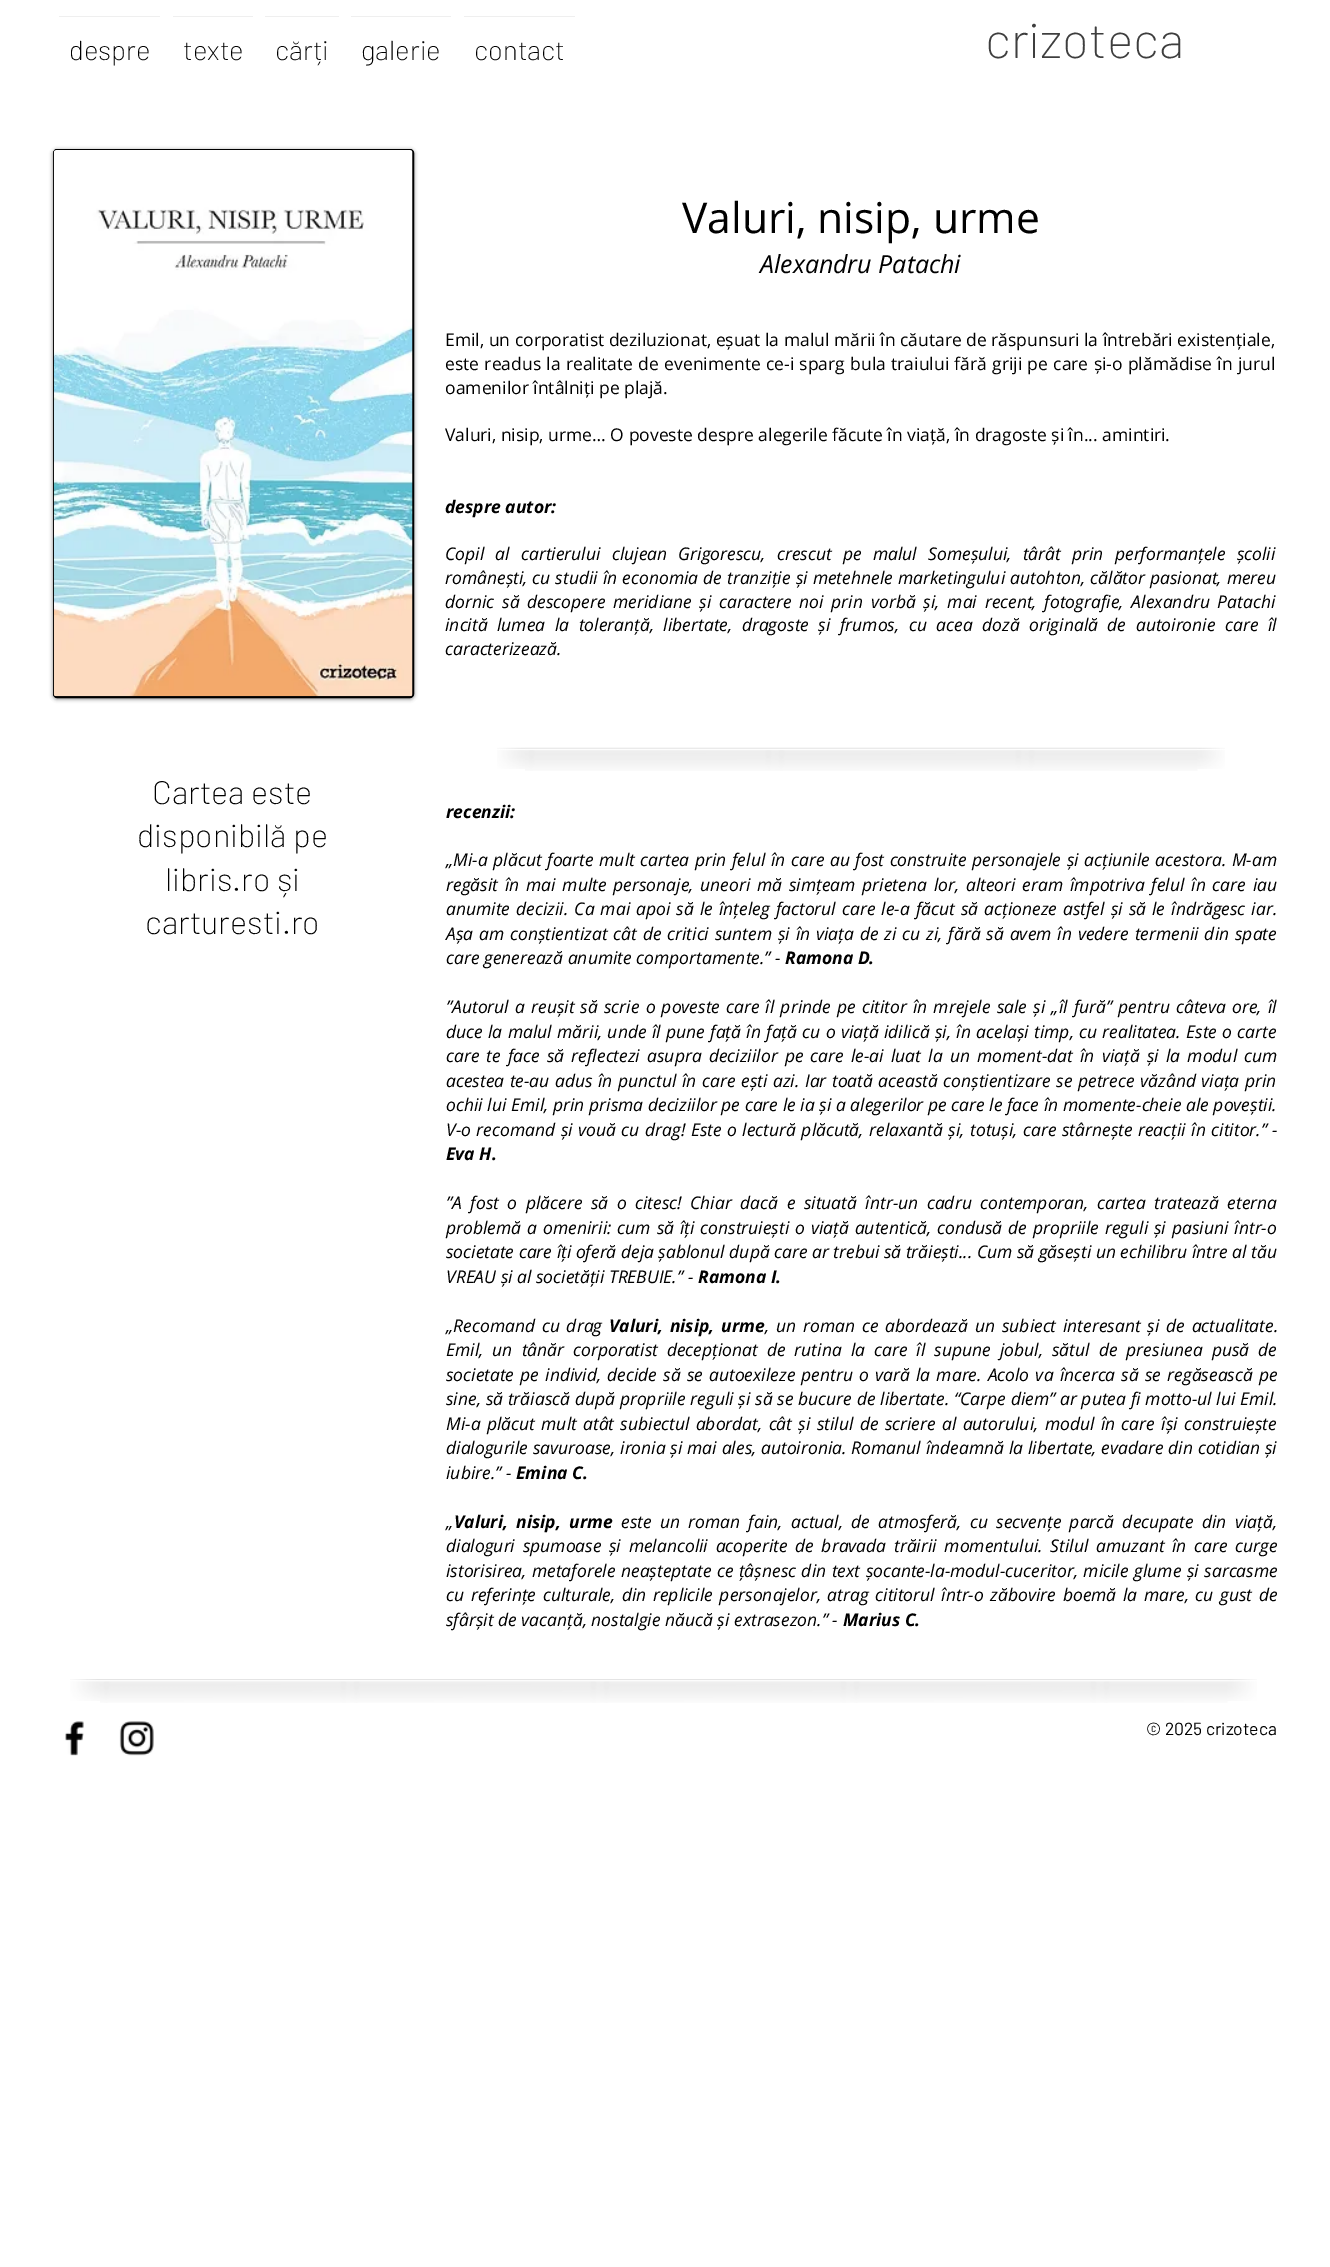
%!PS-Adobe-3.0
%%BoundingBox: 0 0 1330 2267
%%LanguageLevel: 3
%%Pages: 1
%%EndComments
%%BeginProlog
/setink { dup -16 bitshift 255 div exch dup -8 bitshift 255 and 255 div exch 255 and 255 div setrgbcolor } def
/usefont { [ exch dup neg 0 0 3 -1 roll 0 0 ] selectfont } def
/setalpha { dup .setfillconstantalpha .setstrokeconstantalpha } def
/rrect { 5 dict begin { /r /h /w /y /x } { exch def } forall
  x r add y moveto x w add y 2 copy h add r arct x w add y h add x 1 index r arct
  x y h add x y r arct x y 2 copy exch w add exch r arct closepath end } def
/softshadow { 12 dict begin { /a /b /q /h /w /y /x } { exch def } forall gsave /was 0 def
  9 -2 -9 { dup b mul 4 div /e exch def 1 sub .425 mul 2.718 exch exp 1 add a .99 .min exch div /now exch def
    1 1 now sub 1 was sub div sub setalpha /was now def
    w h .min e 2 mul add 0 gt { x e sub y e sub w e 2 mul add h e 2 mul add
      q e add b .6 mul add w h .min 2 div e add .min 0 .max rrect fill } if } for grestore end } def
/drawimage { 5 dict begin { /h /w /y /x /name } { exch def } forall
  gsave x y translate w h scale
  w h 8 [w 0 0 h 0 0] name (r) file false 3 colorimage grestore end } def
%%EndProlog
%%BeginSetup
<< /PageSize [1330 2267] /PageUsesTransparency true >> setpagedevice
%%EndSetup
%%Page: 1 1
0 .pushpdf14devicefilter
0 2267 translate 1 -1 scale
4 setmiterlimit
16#FFFFFF setink
0 0 1330 2267 rectfill
16#EFEFEF setink
59 16 101 1 rectfill
/Barlow-ExtraLight 27.5 usefont
16#000000 setink
69 60 moveto (despre) show
16#EFEFEF setink
173 16 80 1 rectfill
16#000000 setink
183 60 moveto (texte) show
16#EFEFEF setink
265 16 74 1 rectfill
16#000000 setink
275 60 moveto (cărți) show
16#EFEFEF setink
351 16 100 1 rectfill
16#000000 setink
361 60 moveto (galerie) show
16#EFEFEF setink
464 16 111 1 rectfill
16#000000 setink
474 60 moveto (contact) show
/Barlow-ExtraLight 50 usefont
16#3E3E3E setink
985 58 moveto (crizoteca) show
16#000000 setink
53 150 361 549 4 2 0.5 softshadow
53.5 149.5 360 548 3.5 rrect gsave fill grestore
stroke
(img1.raw) 53 150 360 547 drawimage
/OpenSans-Regular 42.5 usefont
682 233 moveto (Valuri, nisip, urme) show
/OpenSans-Italic 25 usefont
760 273 moveto (Alexandru Patachi) show
/OpenSans-Regular 17.5 usefont
445 346 moveto (Emil, un corporatist deziluzionat, eșuat la malul mării în căutare de răspunsuri la întrebări existențiale,) show
445 370 moveto 0.75 0 32 (este readus la realitate de evenimente ce-i sparg bula traiului fără griji pe care și-o plămădise în jurul) widthshow
445 394 moveto (oamenilor întâlniți pe plajă.) show
445 441 moveto (Valuri, nisip, urme… O poveste despre alegerile făcute în viață, în dragoste și în... amintiri.) show
/OpenSans-BoldItalic 17.5 usefont
445 513 moveto (despre autor:) show
/OpenSans-Italic 17.5 usefont
445 560 moveto 6.75 0 32 (Copil al cartierului clujean Grigorescu, crescut pe malul Someșului, târât prin performanțele școlii) widthshow
445 584 moveto 0.5 0 32 (românești, cu studii în economia de tranziție și metehnele marketingului autohton, călător pasionat, mereu) widthshow
445 608 moveto 3.25 0 32 (dornic să descopere meridiane și caractere noi prin vorbă și, mai recent, fotografie, Alexandru Patachi) widthshow
445 631 moveto 5 0 32 (incită lumea la toleranță, libertate, dragoste și frumos, cu acea doză originală de autoironie care îl) widthshow
445 655 moveto (caracterizează.) show
(img2.raw) 497 747 28 22 drawimage
(img3.raw) 525 747 673 24 drawimage
(img4.raw) 1197 747 28 22 drawimage
/Barlow-ExtraLight 32.5 usefont
[
    [(Cartea este) 152 804]
    [(disponibilă pe) 137 847]
    [(libris.ro și) 165 891]
    [(carturesti.ro) 145 934]
] { aload pop moveto show } forall
/OpenSans-BoldItalic 17.5 usefont
446 818 moveto (recenzii:) show
/OpenSans-Italic 17.5 usefont
446 866 moveto 1.1 0 32 („Mi-a plăcut foarte mult cartea prin felul în care au fost construite personajele și acțiunile acestora. M-am) widthshow
446 891 moveto 2.25 0 32 (regăsit în mai multe personaje, uneori mă simțeam prietena lor, alteori eram împotriva felul în care iau) widthshow
446 915 moveto 1.5 0 32 (anumite decizii. Ca mai apoi să le înțeleg factorul care le-a făcut să acționeze astfel și să le îndrăgesc iar.) widthshow
446 940 moveto 1.3 0 32 (Așa am conștientizat cât de critici suntem și în viața de zi cu zi, fără să avem în vedere termenii din spate) widthshow
446 964 moveto (care generează anumite comportamente.” -) show
/OpenSans-BoldItalic 17.5 usefont
785 964 moveto (Ramona D.) show
/OpenSans-Italic 17.5 usefont
446 1013 moveto 1.6 0 32 (”Autorul a reușit să scrie o poveste care îl prinde pe cititor în mrejele sale și „îl fură” pentru câteva ore, îl) widthshow
446 1038 moveto 0.75 0 32 (duce la malul mării, unde îl pune față în față cu o viață idilică și, în același timp, cu realitatea. Este o carte) widthshow
446 1062 moveto 2.6 0 32 (care te face să reflectezi asupra deciziilor pe care le-ai luat la un moment-dat în viață și la modul cum) widthshow
446 1087 moveto 1 0 32 (acestea te-au adus în punctul în care ești azi. Iar toată această conștientizare se petrece văzând viața prin) widthshow
446 1111 moveto 0.1 0 32 (ochii lui Emil, prin prisma deciziilor pe care le ia și a alegerilor pe care le face în momente-cheie ale poveștii.) widthshow
446 1136 moveto 1 0 32 (V-o recomand și vouă cu drag! Este o lectură plăcută, relaxantă și, totuși, care stârnește reacții în cititor.” -) widthshow
/OpenSans-BoldItalic 17.5 usefont
446 1160 moveto (Eva H.) show
/OpenSans-Italic 17.5 usefont
446 1209 moveto 4 0 32 (”A fost o plăcere să o citesc! Chiar dacă e situată într-un cadru contemporan, cartea tratează eterna) widthshow
446 1234 moveto 1.4 0 32 (problemă a omenirii: cum să îți construiești o viață autentică, condusă de propriile reguli și pasiuni într-o) widthshow
446 1258 moveto (societate care îți oferă deja șablonul după care ar trebui să trăiești... Cum să găsești un echilibru între al tău) show
446 1283 moveto (VREAU și al societății TREBUIE.” -) show
/OpenSans-BoldItalic 17.5 usefont
698 1283 moveto (Ramona I.) show
/OpenSans-Italic 17.5 usefont
446 1332 moveto 2.25 0 32 („Recomand cu drag) widthshow
/OpenSans-BoldItalic 17.5 usefont
609 1332 moveto 2.25 0 32 (Valuri, nisip, urme) widthshow
/OpenSans-Italic 17.5 usefont
765 1332 moveto 2.25 0 32 (, un roman ce abordează un subiect interesant și de actualitate.) widthshow
446 1356 moveto 4.5 0 32 (Emil, un tânăr corporatist decepționat de rutina la care îl supune jobul, sătul de presiunea pusă de) widthshow
446 1381 moveto 1.6 0 32 (societate pe individ, decide să se autoexileze pentru o vară la mare. Acolo va încerca să se regăsească pe) widthshow
446 1405 moveto 0.25 0 32 (sine, să trăiască după propriile reguli și să se bucure de libertate. “Carpe diem” ar putea fi motto-ul lui Emil.) widthshow
446 1430 moveto 1.8 0 32 (Mi-a plăcut mult atât subiectul abordat, cât și stilul de scriere al autorului, modul în care își construiește) widthshow
446 1454 moveto 0.25 0 32 (dialogurile savuroase, ironia și mai ales, autoironia. Romanul îndeamnă la libertate, evadare din cotidian și) widthshow
446 1479 moveto (iubire.” -) show
/OpenSans-BoldItalic 17.5 usefont
516 1479 moveto (Emina C.) show
/OpenSans-Italic 17.5 usefont
446 1528 moveto („) show
/OpenSans-BoldItalic 17.5 usefont
454 1528 moveto 3.75 0 32 (Valuri, nisip, urme) widthshow
/OpenSans-Italic 17.5 usefont
621 1528 moveto 3.75 0 32 (este un roman fain, actual, de atmosferă, cu secvențe parcă decupate din viață,) widthshow
446 1552 moveto 3.1 0 32 (dialoguri spumoase și melancolii acoperite de bravada trăirii momentului. Stilul amuzant în care curge) widthshow
446 1577 moveto 1 0 32 (istorisirea, metaforele neașteptate ce țâșnesc din text șocante-la-modul-cuceritor, micile glume și sarcasme) widthshow
446 1601 moveto 2.1 0 32 (cu referințe culturale, din replicile personajelor, atrag cititorul într-o zăbovire boemă la mare, cu gust de) widthshow
446 1626 moveto (sfârșit de vacanță, nostalgie năucă și extrasezon.” -) show
/OpenSans-BoldItalic 17.5 usefont
843 1626 moveto (Marius C.) show
(img5.raw) 70 1679 30 22 drawimage
(img6.raw) 100 1679 1128 24 drawimage
(img7.raw) 1227 1679 30 22 drawimage
(img8.raw) 65 1721 19 35 drawimage
(img9.raw) 119 1721 35 35 drawimage
/Barlow-Regular 17.5 usefont
1146 1735 moveto (© 2025 crizoteca) show
.poppdf14devicefilter showpage
%%EOF
